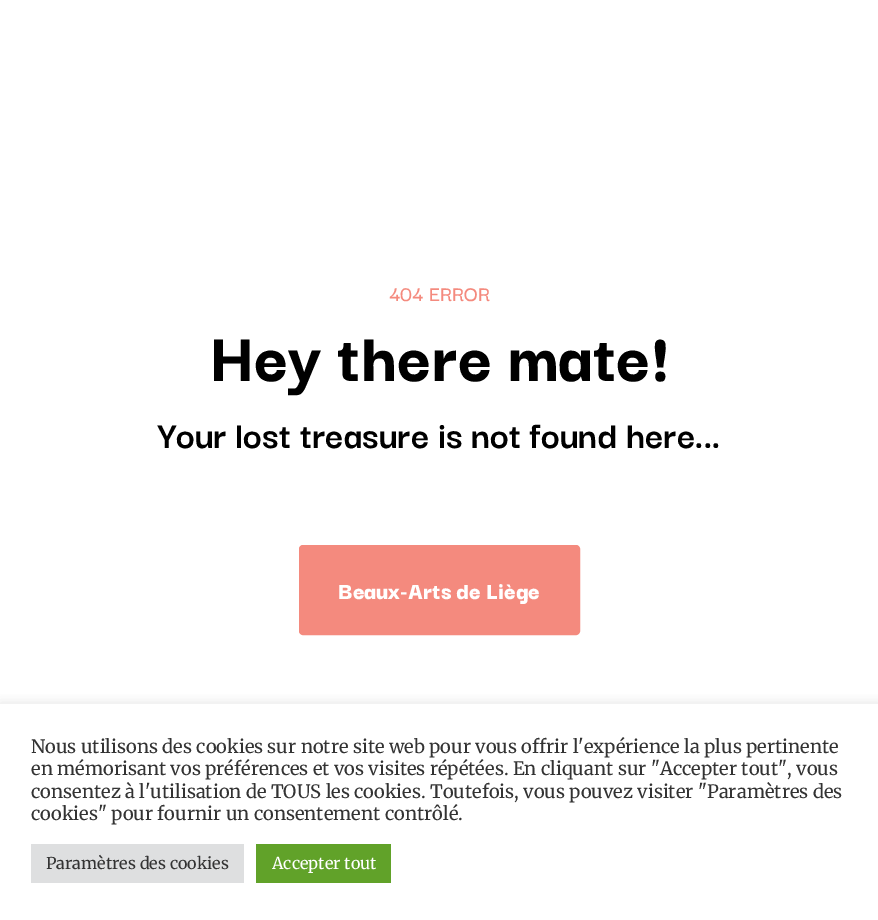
%!PS-Adobe-3.0
%%BoundingBox: 0 0 878 920
%%LanguageLevel: 3
%%Pages: 1
%%EndComments
%%BeginProlog
/setink { dup -16 bitshift 255 div exch dup -8 bitshift 255 and 255 div exch 255 and 255 div setrgbcolor } def
/usefont { [ exch dup neg 0 0 3 -1 roll 0 0 ] selectfont } def
/setalpha { dup .setfillconstantalpha .setstrokeconstantalpha } def
/rrect { 5 dict begin { /r /h /w /y /x } { exch def } forall
  x r add y moveto x w add y 2 copy h add r arct x w add y h add x 1 index r arct
  x y h add x y r arct x y 2 copy exch w add exch r arct closepath end } def
/softshadow { 12 dict begin { /a /b /q /h /w /y /x } { exch def } forall gsave /was 0 def
  9 -2 -9 { dup b mul 4 div /e exch def 1 sub .425 mul 2.718 exch exp 1 add a .99 .min exch div /now exch def
    1 1 now sub 1 was sub div sub setalpha /was now def
    w h .min e 2 mul add 0 gt { x e sub y e sub w e 2 mul add h e 2 mul add
      q e add b .6 mul add w h .min 2 div e add .min 0 .max rrect fill } if } for grestore end } def
%%EndProlog
%%BeginSetup
<< /PageSize [878 920] /PageUsesTransparency true >> setpagedevice
%%EndSetup
%%Page: 1 1
0 .pushpdf14devicefilter
0 920 translate 1 -1 scale
4 setmiterlimit
16#FFFFFF setink
0 0 878 920 rectfill
/DarkerGrotesque-SemiBold 22.5 usefont
16#F48A7E setink
389 301 moveto (404 ERROR) show
/DarkerGrotesque-ExtraBold 73.75 usefont
16#000000 setink
210 381 moveto (Hey there mate!) show
/DarkerGrotesque-Bold 40 usefont
158 448 moveto (Your lost treasure is not found here...) show
16#F48A7E setink
300.5 546.5 278 87 2.5 rrect gsave fill grestore
3 setlinewidth
stroke
/DarkerGrotesque-Black 25 usefont
16#FFFFFF setink
338 599 moveto (Beaux-Arts de Liège) show
gsave
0 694 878 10 rectclip
16#ACABAB setink
0 703 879 216 0 6 0.3 softshadow
grestore
/Merriweather-Light 18.35 usefont
16#333333 setink
[
    [(Nous utilisons des cookies sur notre site web pour vous offrir l'expérience la plus pertinente) 31 753]
    [(en mémorisant vos préférences et vos visites répétées. En cliquant sur "Accepter tout", vous) 31 775]
    [(consentez à l'utilisation de TOUS les cookies. Toutefois, vous pouvez visiter "Paramètres des) 31 798]
    [(cookies" pour fournir un consentement contrôlé.) 31 820]
] { aload pop moveto show } forall
16#DEDFE0 setink
31 844 213 39 rectfill
/Merriweather-Light 16.25 usefont
16#333333 setink
46 869 moveto (Paramètres des cookies) show
16#61A229 setink
256 844 135 39 rectfill
16#FFFFFF setink
272 869 moveto (Accepter tout) show
.poppdf14devicefilter showpage
%%EOF
